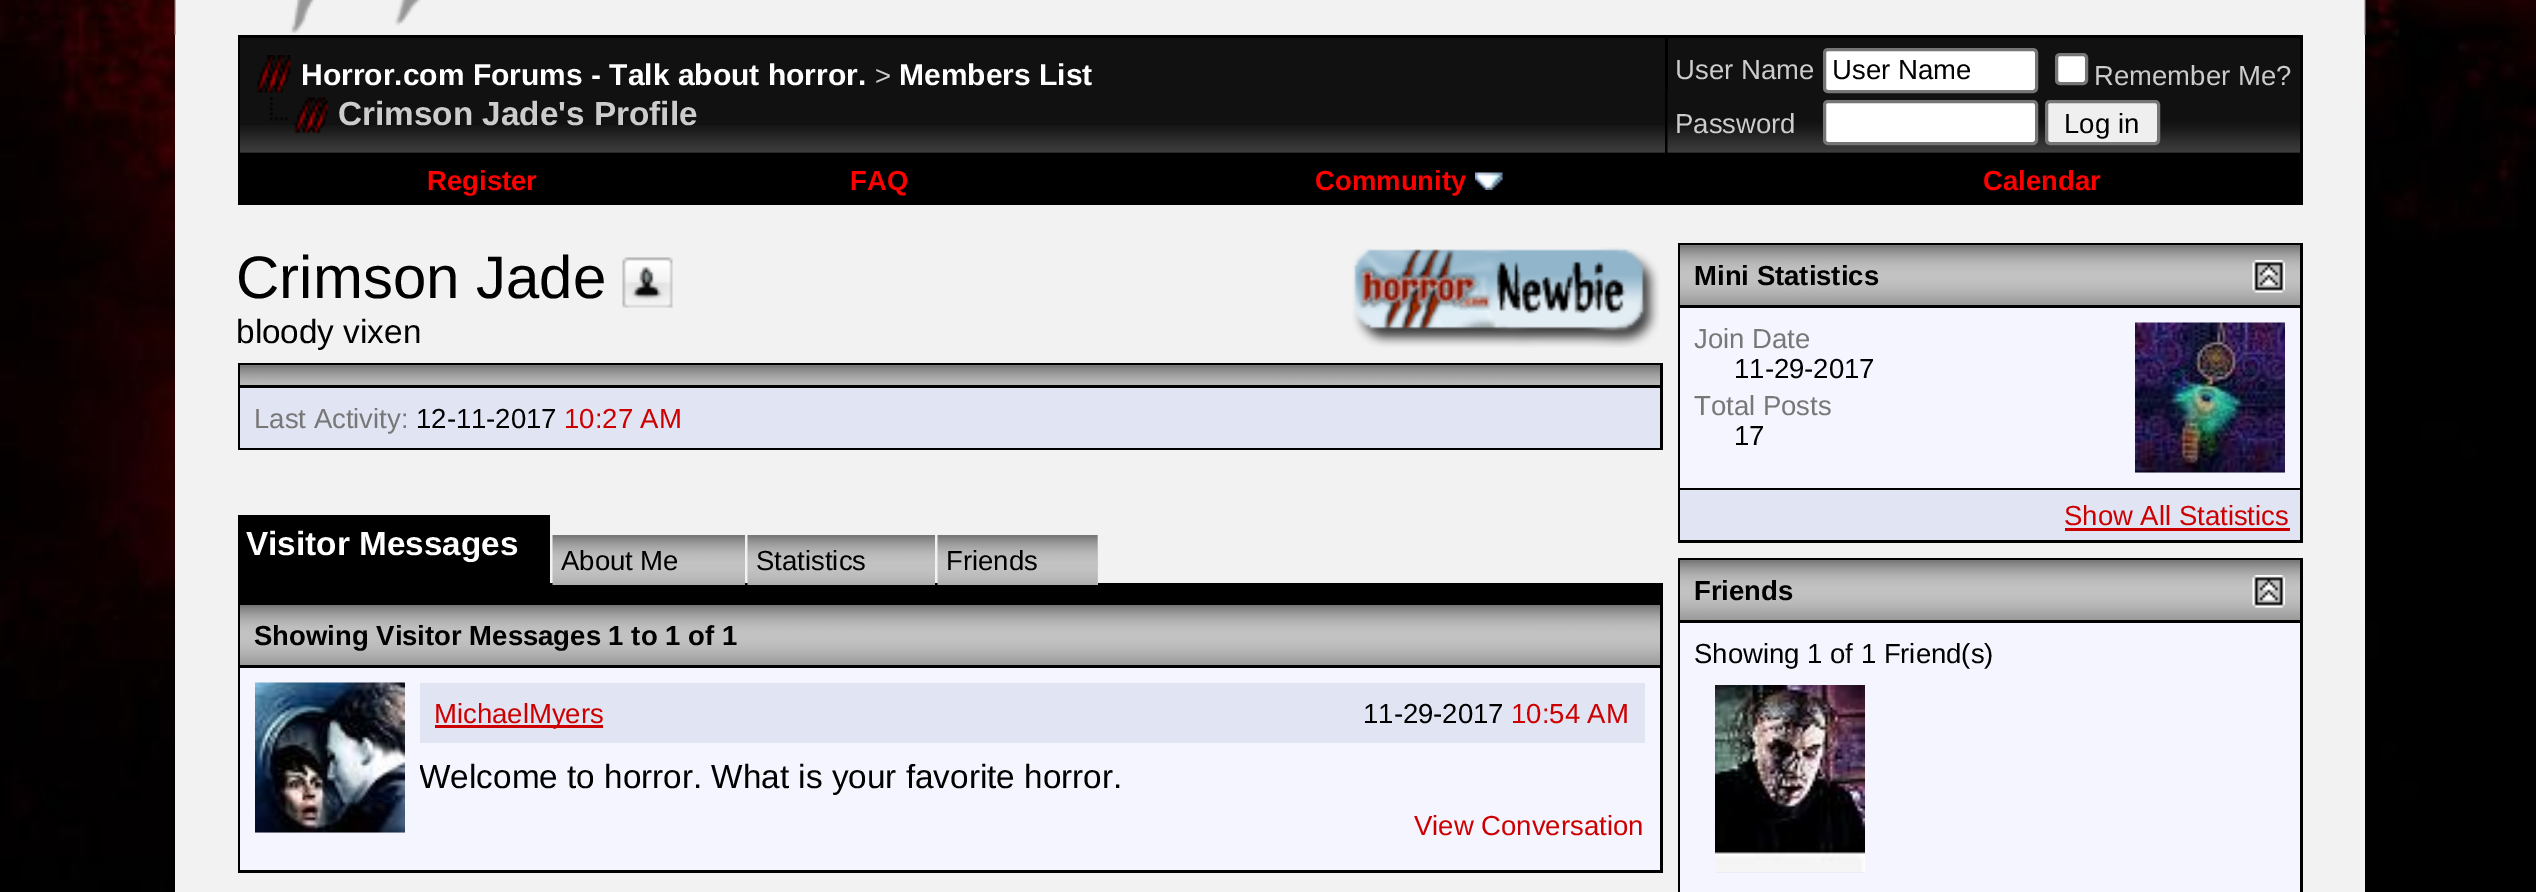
%!PS-Adobe-3.0
%%BoundingBox: 0 0 2536 892
%%LanguageLevel: 3
%%Pages: 1
%%EndComments
%%BeginProlog
/setink { dup -16 bitshift 255 div exch dup -8 bitshift 255 and 255 div exch 255 and 255 div setrgbcolor } def
/usefont { [ exch dup neg 0 0 3 -1 roll 0 0 ] selectfont } def
/rrect { 5 dict begin { /r /h /w /y /x } { exch def } forall
  x r add y moveto x w add y 2 copy h add r arct x w add y h add x 1 index r arct
  x y h add x y r arct x y 2 copy exch w add exch r arct closepath end } def
/drawimage { 5 dict begin { /h /w /y /x /name } { exch def } forall
  gsave x y translate w h scale
  w h 8 [w 0 0 h 0 0] name (r) file false 3 colorimage grestore end } def
%%EndProlog
%%BeginSetup
<< /PageSize [2536 892] >> setpagedevice
%%EndSetup
%%Page: 1 1
0 892 translate 1 -1 scale
4 setmiterlimit
16#FFFFFF setink
0 0 2536 892 rectfill
(img1.raw) 0 0 2536 892 drawimage
(img2.raw) 174 0 2192 35 drawimage
[
    [175 35 2190 857 16#F2F2F2]
    [238 35 2065 170 16#000000]
    [240 38 1425 115 16#111111]
] { aload pop setink rectfill } forall
(img3.raw) 240 125 1425 28 drawimage
(img4.raw) 257 55 34 38 drawimage
/LiberationSans-Bold 30 usefont
16#FFFFFF setink
301 85 moveto (Horror.com Forums - Talk about horror.) show
/LiberationSans-Regular 27.5 usefont
16#CCCCCC setink
875 85 moveto (>) show
/LiberationSans-Bold 30 usefont
16#FFFFFF setink
899 85 moveto (Members List) show
(img5.raw) 269 97 60 37 drawimage
/LiberationSans-Bold 33.3 usefont
16#CCCCCC setink
338 125 moveto (Crimson Jade's Profile) show
16#111111 setink
1668 38 632 115 rectfill
(img6.raw) 1667 90 633 63 drawimage
/LiberationSans-Regular 27.5 usefont
16#CCCCCC setink
1675 79 moveto (User Name) show
16#FFFFFF setink
1824.5 49.5 212 42 3.5 rrect gsave fill grestore
16#767676 setink
3 setlinewidth
stroke
16#000000 setink
1832 79 moveto (User Name) show
16#FFFFFF setink
2056.5 54.5 30 29 3.5 rrect gsave fill grestore
16#767676 setink
stroke
16#CCCCCC setink
2094 85 moveto (Remember Me?) show
1675 133 moveto (Password) show
16#FFFFFF setink
1824.5 101.5 212 42 3.5 rrect gsave fill grestore
16#767676 setink
stroke
16#EFEFEF setink
2046.5 101.5 112 42 3.5 rrect gsave fill grestore
16#767676 setink
stroke
16#000000 setink
2064 133 moveto (Log in) show
/LiberationSans-Bold 27.5 usefont
16#FF0000 setink
[
    [(Register) 427 190]
    [(FAQ) 850 190]
    [(Community) 1315 190]
] { aload pop moveto show } forall
(img7.raw) 1475 172 28 18 drawimage
1983 190 moveto (Calendar) show
/LiberationSans-Regular 60 usefont
16#000000 setink
236 298 moveto (Crimson Jade) show
(img8.raw) 622 257 51 51 drawimage
(img9.raw) 1352 247 308 101 drawimage
/LiberationSans-Regular 33.3 usefont
236 343 moveto (bloody vixen) show
238 363 1425 87 rectfill
(img10.raw) 240 365 1420 20 drawimage
16#E1E4F2 setink
240 388 1420 60 rectfill
/LiberationSans-Regular 27.5 usefont
16#777777 setink
254 428 moveto (Last Activity:) show
16#000000 setink
416 428 moveto (12-11-2017) show
16#CC0000 setink
564 428 moveto (10:27 AM) show
16#000000 setink
238 515 312 68 rectfill
/LiberationSans-Bold 33.3 usefont
16#FFFFFF setink
246 555 moveto (Visitor Messages) show
16#000000 setink
238 583 1425 290 rectfill
(img11.raw) 552 535 193 50 drawimage
/LiberationSans-Regular 27.5 usefont
561 570 moveto (About Me) show
(img12.raw) 747 535 188 50 drawimage
756 570 moveto (Statistics) show
16#CCCCCC setink
1097 535 1 50 rectfill
(img13.raw) 937 535 161 50 drawimage
16#000000 setink
946 570 moveto (Friends) show
(img14.raw) 240 605 1420 60 drawimage
/LiberationSans-Bold 27.5 usefont
254 645 moveto (Showing Visitor Messages 1 to 1 of 1) show
16#F5F5FF setink
240 668 1420 202 rectfill
16#E1E4F2 setink
255 832 150 1 rectfill
(img15.raw) 255 682 150 151 drawimage
420 683 1225 60 rectfill
16#CC0000 setink
435 725 168 3 rectfill
/LiberationSans-Regular 27.5 usefont
434 723 moveto (MichaelMyers) show
16#000000 setink
1363 723 moveto (11-29-2017) show
16#CC0000 setink
1511 723 moveto (10:54 AM) show
gsave
420 758 1225 37 rectclip
/LiberationSans-Regular 33.3 usefont
16#000000 setink
419 788 moveto (Welcome to horror. What is your favorite horror.) show
grestore
1414 835 moveto (View Conversation) show
16#000000 setink
1678 243 625 300 rectfill
(img16.raw) 1680 245 620 60 drawimage
/LiberationSans-Bold 27.5 usefont
1694 285 moveto (Mini Statistics) show
(img17.raw) 2252 260 33 33 drawimage
16#F5F5FF setink
1680 308 620 180 rectfill
/LiberationSans-Regular 27.5 usefont
16#777777 setink
1694 348 moveto (Join Date) show
16#000000 setink
1734 378 moveto (11-29-2017) show
16#777777 setink
1694 415 moveto (Total Posts) show
16#000000 setink
1734 445 moveto (17) show
16#E1E4F2 setink
2135 472 150 1 rectfill
(img18.raw) 2135 322 150 151 drawimage
1680 490 620 50 rectfill
16#CC0000 setink
2064 525 moveto (Show All Statistics) show
2065 528 225 3 rectfill
16#000000 setink
1678 558 625 334 rectfill
(img19.raw) 1680 560 620 60 drawimage
/LiberationSans-Bold 27.5 usefont
1694 600 moveto (Friends) show
(img20.raw) 2252 575 33 33 drawimage
16#F5F5FF setink
1680 623 620 269 rectfill
/LiberationSans-Regular 27.5 usefont
16#000000 setink
1694 663 moveto (Showing 1 of 1 Friend\(s\)) show
16#E1E4F2 setink
1715 872 150 1 rectfill
(img21.raw) 1715 685 150 188 drawimage
showpage
%%EOF
